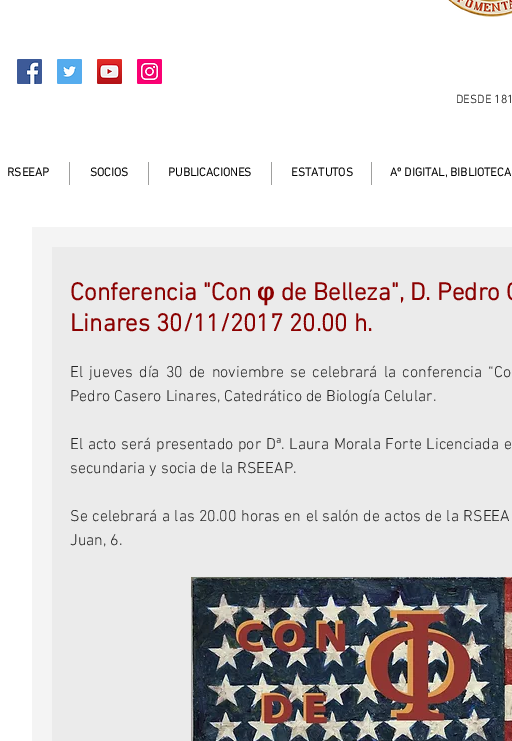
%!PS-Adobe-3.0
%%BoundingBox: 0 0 512 741
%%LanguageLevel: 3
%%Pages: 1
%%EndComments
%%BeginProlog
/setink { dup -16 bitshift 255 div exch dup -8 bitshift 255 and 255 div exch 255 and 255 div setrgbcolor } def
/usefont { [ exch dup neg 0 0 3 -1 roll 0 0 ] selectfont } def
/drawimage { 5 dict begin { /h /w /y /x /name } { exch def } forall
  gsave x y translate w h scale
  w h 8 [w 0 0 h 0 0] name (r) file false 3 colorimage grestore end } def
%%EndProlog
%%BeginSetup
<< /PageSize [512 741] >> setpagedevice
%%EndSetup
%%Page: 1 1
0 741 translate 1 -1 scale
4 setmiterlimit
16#FFFFFF setink
0 0 512 741 rectfill
(img1.raw) 448 0 64 17 drawimage
(img2.raw) 17 59 25 25 drawimage
(img3.raw) 57 59 25 25 drawimage
(img4.raw) 97 59 25 25 drawimage
(img5.raw) 137 59 25 25 drawimage
/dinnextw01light-Light 12 usefont
16#000000 setink
456 103 moveto (DESDE 181) show
/dinnextw01light-Bold 12 usefont
7 176 moveto (RSEEAP) show
16#A0A09F setink
69 162 1 23 rectfill
16#000000 setink
90 176 moveto (SOCIOS) show
16#A0A09F setink
148 162 1 23 rectfill
16#000000 setink
168 176 moveto (PUBLICACIONES) show
16#A0A09F setink
271 162 1 23 rectfill
16#000000 setink
291 176 moveto (ESTATUTOS) show
16#A0A09F setink
371 162 1 23 rectfill
16#000000 setink
390 176 moveto (Aº DIGITAL, BIBLIOTECA) show
16#F4F4F4 setink
32 227 480 514 rectfill
16#EBEBEB setink
52 247 460 494 rectfill
/dinnextw01light-Bold 25 usefont
16#8B0000 setink
70 300 moveto (Conferencia "Con) show
/LiberationSans-Bold 25 usefont
257 300 moveto (φ) show
/dinnextw01light-Bold 25 usefont
281 300 moveto (de Belleza", D. Pedro C) show
70 331 moveto (Linares 30/11/2017 20.00 h.) show
/dinnextw01light-Light 16 usefont
16#242424 setink
70 377 moveto 2.25 0 32 (El jueves día 30 de noviembre se celebrará la conferencia “Co) widthshow
70 401 moveto (Pedro Casero Linares, Catedrático de Biología Celular.) show
70 449 moveto 0.75 0 32 (El acto será presentado por Dª. Laura Morala Forte Licenciada e) widthshow
70 473 moveto (secundaria y socia de la RSEEAP.) show
70 521 moveto 0.5 0 32 (Se celebrará a las 20.00 horas en el salón de actos de la RSEEA) widthshow
70 545 moveto (Juan, 6.) show
(img6.raw) 191 577 321 164 drawimage
showpage
%%EOF
